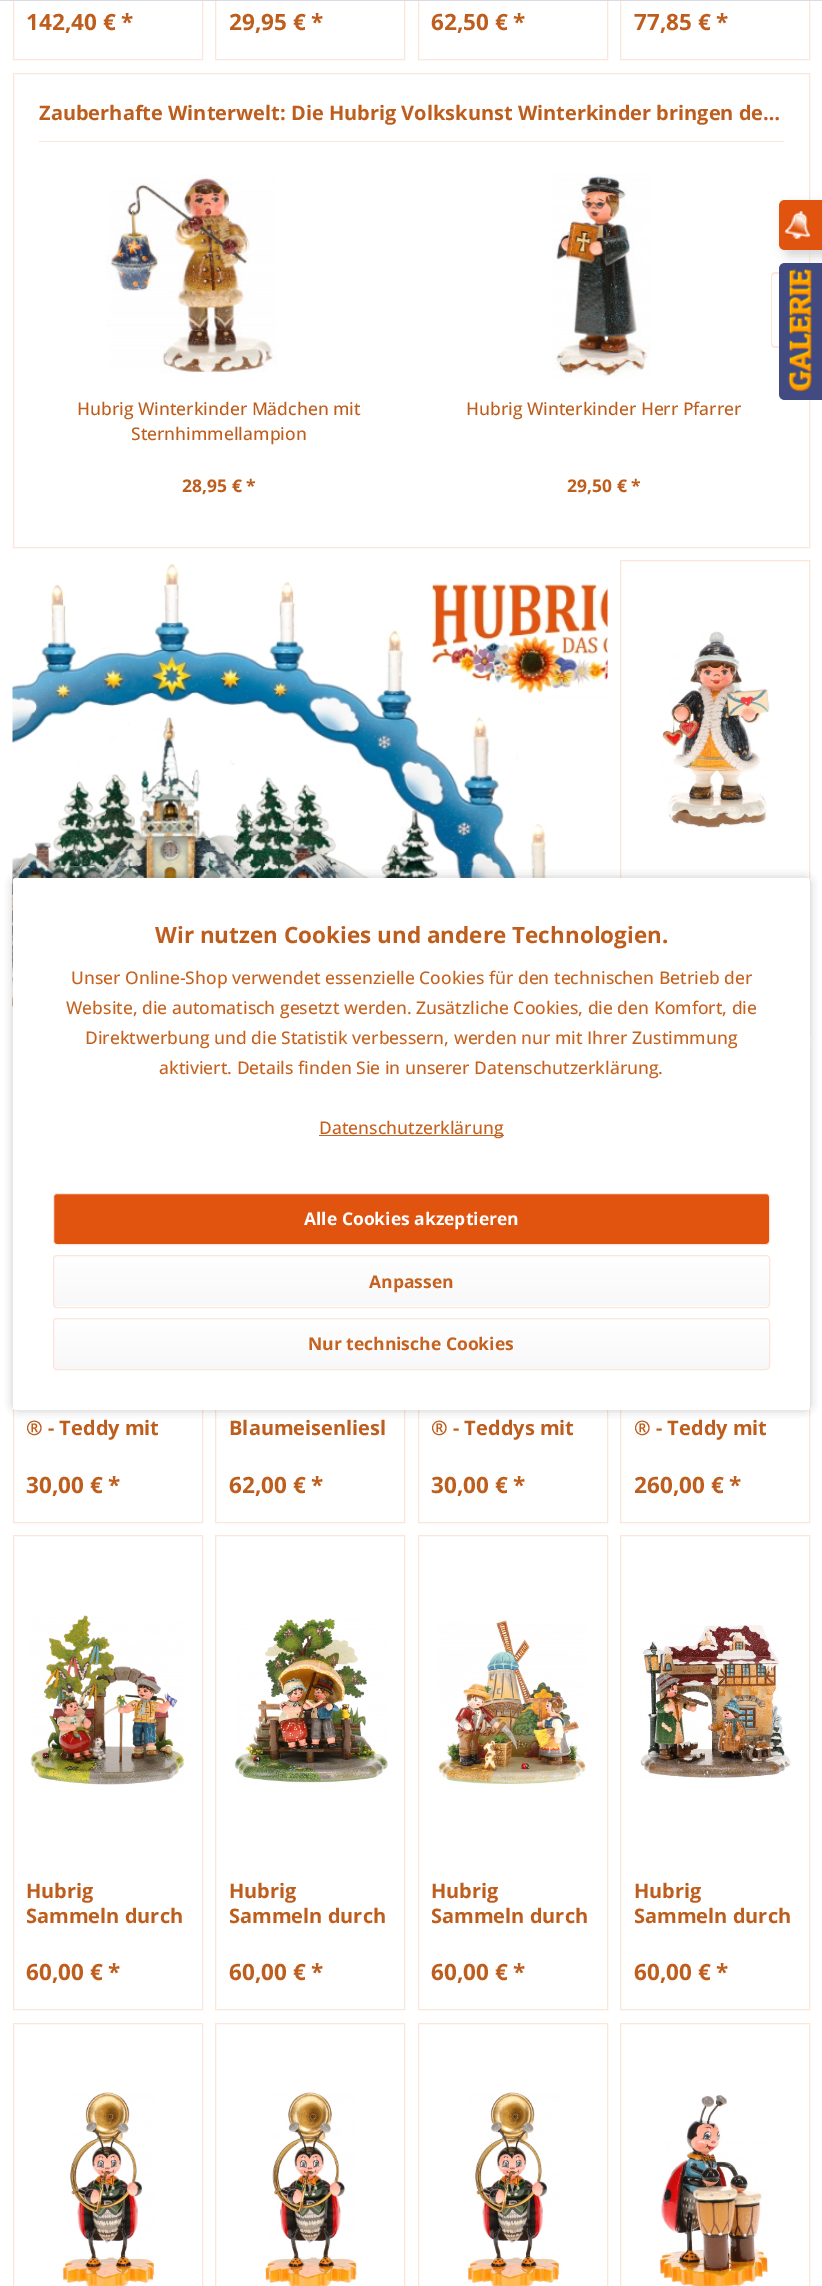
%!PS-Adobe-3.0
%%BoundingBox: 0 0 822 2286
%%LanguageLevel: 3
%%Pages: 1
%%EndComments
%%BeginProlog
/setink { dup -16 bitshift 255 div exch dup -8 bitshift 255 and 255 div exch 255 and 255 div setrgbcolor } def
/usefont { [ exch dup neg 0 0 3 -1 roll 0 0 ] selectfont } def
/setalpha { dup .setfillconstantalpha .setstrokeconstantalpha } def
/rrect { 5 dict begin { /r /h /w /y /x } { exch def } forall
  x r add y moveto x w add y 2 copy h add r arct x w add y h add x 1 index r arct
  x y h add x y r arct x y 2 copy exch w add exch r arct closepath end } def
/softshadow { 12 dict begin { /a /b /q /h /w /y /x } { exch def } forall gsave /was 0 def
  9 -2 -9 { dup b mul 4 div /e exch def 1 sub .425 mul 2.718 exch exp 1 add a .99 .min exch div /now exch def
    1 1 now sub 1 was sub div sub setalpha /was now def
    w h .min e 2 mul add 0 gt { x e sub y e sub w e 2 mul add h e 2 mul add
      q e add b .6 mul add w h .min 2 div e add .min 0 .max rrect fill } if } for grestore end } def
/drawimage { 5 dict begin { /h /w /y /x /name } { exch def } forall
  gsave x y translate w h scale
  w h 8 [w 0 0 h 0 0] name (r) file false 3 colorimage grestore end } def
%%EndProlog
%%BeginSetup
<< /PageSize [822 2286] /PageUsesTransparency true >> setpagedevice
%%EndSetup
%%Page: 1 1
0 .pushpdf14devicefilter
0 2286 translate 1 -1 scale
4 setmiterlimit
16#FFFFFF setink
0 0 822 2286 rectfill
16#FCE5D9 setink
13.5 -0.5 189 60 rectstroke
/OpenSans-Bold 22.5 usefont
16#BD5E1E setink
26 30 moveto (142,40 € *) show
16#FCE5D9 setink
215.5 -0.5 189 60 rectstroke
16#BD5E1E setink
229 30 moveto (29,95 € *) show
16#FCE5D9 setink
418.5 -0.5 189 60 rectstroke
16#BD5E1E setink
431 30 moveto (62,50 € *) show
16#FCE5D9 setink
620.5 -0.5 189 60 rectstroke
16#BD5E1E setink
634 30 moveto (77,85 € *) show
16#FCE5D9 setink
13.5 73.5 796 474 rectstroke
39 141 745 1 rectfill
/OpenSans-Bold 20 usefont
16#BD5E1E setink
39 120 moveto (Zauberhafte Winterwelt: Die Hubrig Volkskunst Winterkinder bringen de…) show
16#FCE5D9 setink
775 272 moveto 809 272 lineto 809 348 lineto 775 348 lineto 773 348 771 346 771 344 curveto 771 276 lineto 771 274 773 272 775 272 curveto closepath 775 274 moveto 809 274 lineto 809 346 lineto 775 346 lineto 774 346 772 345 772 344 curveto 772 276 lineto 772 275 774 274 775 274 curveto closepath eofill
(img1.raw) 106 175 171 198 drawimage
/OpenSans-Medium 17.5 usefont
16#BD5E1E setink
77 415 moveto (Hubrig Winterkinder Mädchen mit) show
131 440 moveto (Sternhimmellampion) show
/OpenSans-Bold 17.5 usefont
182 492 moveto (28,95 € *) show
(img2.raw) 552 174 99 205 drawimage
/OpenSans-Medium 17.5 usefont
466 415 moveto (Hubrig Winterkinder Herr Pfarrer) show
/OpenSans-Bold 17.5 usefont
567 492 moveto (29,50 € *) show
(img3.raw) 12 563 596 472 drawimage
16#FCE5D9 setink
620.5 560.5 189 474 rectstroke
(img4.raw) 662 631 108 197 drawimage
13.5 1048.5 189 474 rectstroke
/OpenSans-Bold 20 usefont
16#BD5E1E setink
26 1435 moveto (® - Teddy mit) show
/OpenSans-Bold 22.5 usefont
26 1493 moveto (30,00 € *) show
16#FCE5D9 setink
215.5 1048.5 189 474 rectstroke
/OpenSans-Bold 20 usefont
16#BD5E1E setink
229 1435 moveto (Blaumeisenliesl) show
/OpenSans-Bold 22.5 usefont
229 1493 moveto (62,00 € *) show
16#FCE5D9 setink
418.5 1048.5 189 474 rectstroke
/OpenSans-Bold 20 usefont
16#BD5E1E setink
431 1435 moveto (® - Teddys mit) show
/OpenSans-Bold 22.5 usefont
431 1493 moveto (30,00 € *) show
16#FCE5D9 setink
620.5 1048.5 189 474 rectstroke
/OpenSans-Bold 20 usefont
16#BD5E1E setink
634 1435 moveto (® - Teddy mit) show
/OpenSans-Bold 22.5 usefont
634 1493 moveto (260,00 € *) show
16#FCE5D9 setink
13.5 1535.5 189 474 rectstroke
(img5.raw) 30 1615 154 170 drawimage
/OpenSans-Bold 20 usefont
16#BD5E1E setink
26 1898 moveto (Hubrig) show
26 1923 moveto (Sammeln durch) show
/OpenSans-Bold 22.5 usefont
26 1980 moveto (60,00 € *) show
16#FCE5D9 setink
215.5 1535.5 189 474 rectstroke
(img6.raw) 234 1618 154 165 drawimage
/OpenSans-Bold 20 usefont
16#BD5E1E setink
229 1898 moveto (Hubrig) show
229 1923 moveto (Sammeln durch) show
/OpenSans-Bold 22.5 usefont
229 1980 moveto (60,00 € *) show
16#FCE5D9 setink
418.5 1535.5 189 474 rectstroke
(img7.raw) 438 1620 148 164 drawimage
/OpenSans-Bold 20 usefont
16#BD5E1E setink
431 1898 moveto (Hubrig) show
431 1923 moveto (Sammeln durch) show
/OpenSans-Bold 22.5 usefont
431 1980 moveto (60,00 € *) show
16#FCE5D9 setink
620.5 1535.5 189 474 rectstroke
(img8.raw) 640 1625 151 154 drawimage
/OpenSans-Bold 20 usefont
16#BD5E1E setink
634 1898 moveto (Hubrig) show
634 1923 moveto (Sammeln durch) show
/OpenSans-Bold 22.5 usefont
634 1980 moveto (60,00 € *) show
16#FCE5D9 setink
13.5 2023.5 189 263 rectstroke
(img9.raw) 62 2092 94 194 drawimage
215.5 2023.5 189 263 rectstroke
(img10.raw) 265 2092 92 194 drawimage
418.5 2023.5 189 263 rectstroke
(img9.raw) 467 2092 94 194 drawimage
620.5 2023.5 189 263 rectstroke
(img11.raw) 659 2095 109 191 drawimage
16#D3D3D3 setink
785 206 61 50 6 6 1 softshadow
16#E1540F setink
785 200 moveto 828 200 lineto 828 250 lineto 785 250 lineto 781.5 250 779 247.5 779 244 curveto 779 206 lineto 779 202.5 781.5 200 785 200 curveto closepath fill
(img12.raw) 784 211 27 29 drawimage
16#424B81 setink
785 263 moveto 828 263 lineto 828 400 lineto 785 400 lineto 781.5 400 779 397.5 779 394 curveto 779 269 lineto 779 265.5 781.5 263 785 263 curveto closepath fill
(img13.raw) 788 269 24 123 drawimage
16#DADAE5 setink
0 0 822 1 rectfill
16#000000 setink
18 883 787 522 0 6 0.6 softshadow
16#FFFFFF setink
13 878 797 532 2.5 rrect fill
16#BD5E1E setink
155 943 moveto (Wir nutzen Cookies und andere Technologien.) show
/OpenSans-Medium 17.5 usefont
16#C6621F setink
[
    [(Unser Online-Shop verwendet essenzielle Cookies für den technischen Betrieb der) 71 984]
    [(Website, die automatisch gesetzt werden. Zusätzliche Cookies, die den Komfort, die) 66 1014]
    [(Direktwerbung und die Statistik verbessern, werden nur mit Ihrer Zustimmung) 85 1044]
    [(aktiviert. Details finden Sie in unserer Datenschutzerklärung.) 159 1074]
] { aload pop moveto show } forall
319 1135 185 1 rectfill
319 1134 moveto (Datenschutzerklärung) show
16#E1540F setink
53.5 1193.5 716 51 3.5 rrect gsave fill grestore
16#FCE5D9 setink
stroke
/OpenSans-Bold 17.5 usefont
16#FFFFFF setink
304 1225 moveto (Alle Cookies akzeptieren) show
gsave 54 1256 715 50 2.5 rrect clip newpath
<< /ShadingType 2 /ColorSpace /DeviceRGB /Coords [411 1256 411 1306] /Extend [true true] /Function << /FunctionType 2 /Domain [0 1] /C0 [1 1 1] /C1 [0.973 0.973 0.98] /N 1 >> >> shfill grestore
16#FCE5D9 setink
53.5 1255.5 716 52 3.5 rrect stroke
16#C6621F setink
369 1288 moveto (Anpassen) show
gsave 54 1319 715 50 2.5 rrect clip newpath
<< /ShadingType 2 /ColorSpace /DeviceRGB /Coords [411 1319 411 1369] /Extend [true true] /Function << /FunctionType 2 /Domain [0 1] /C0 [1 1 1] /C1 [0.973 0.973 0.98] /N 1 >> >> shfill grestore
16#FCE5D9 setink
53.5 1318.5 716 51 3.5 rrect stroke
16#C6621F setink
308 1350 moveto (Nur technische Cookies) show
.poppdf14devicefilter showpage
%%EOF
